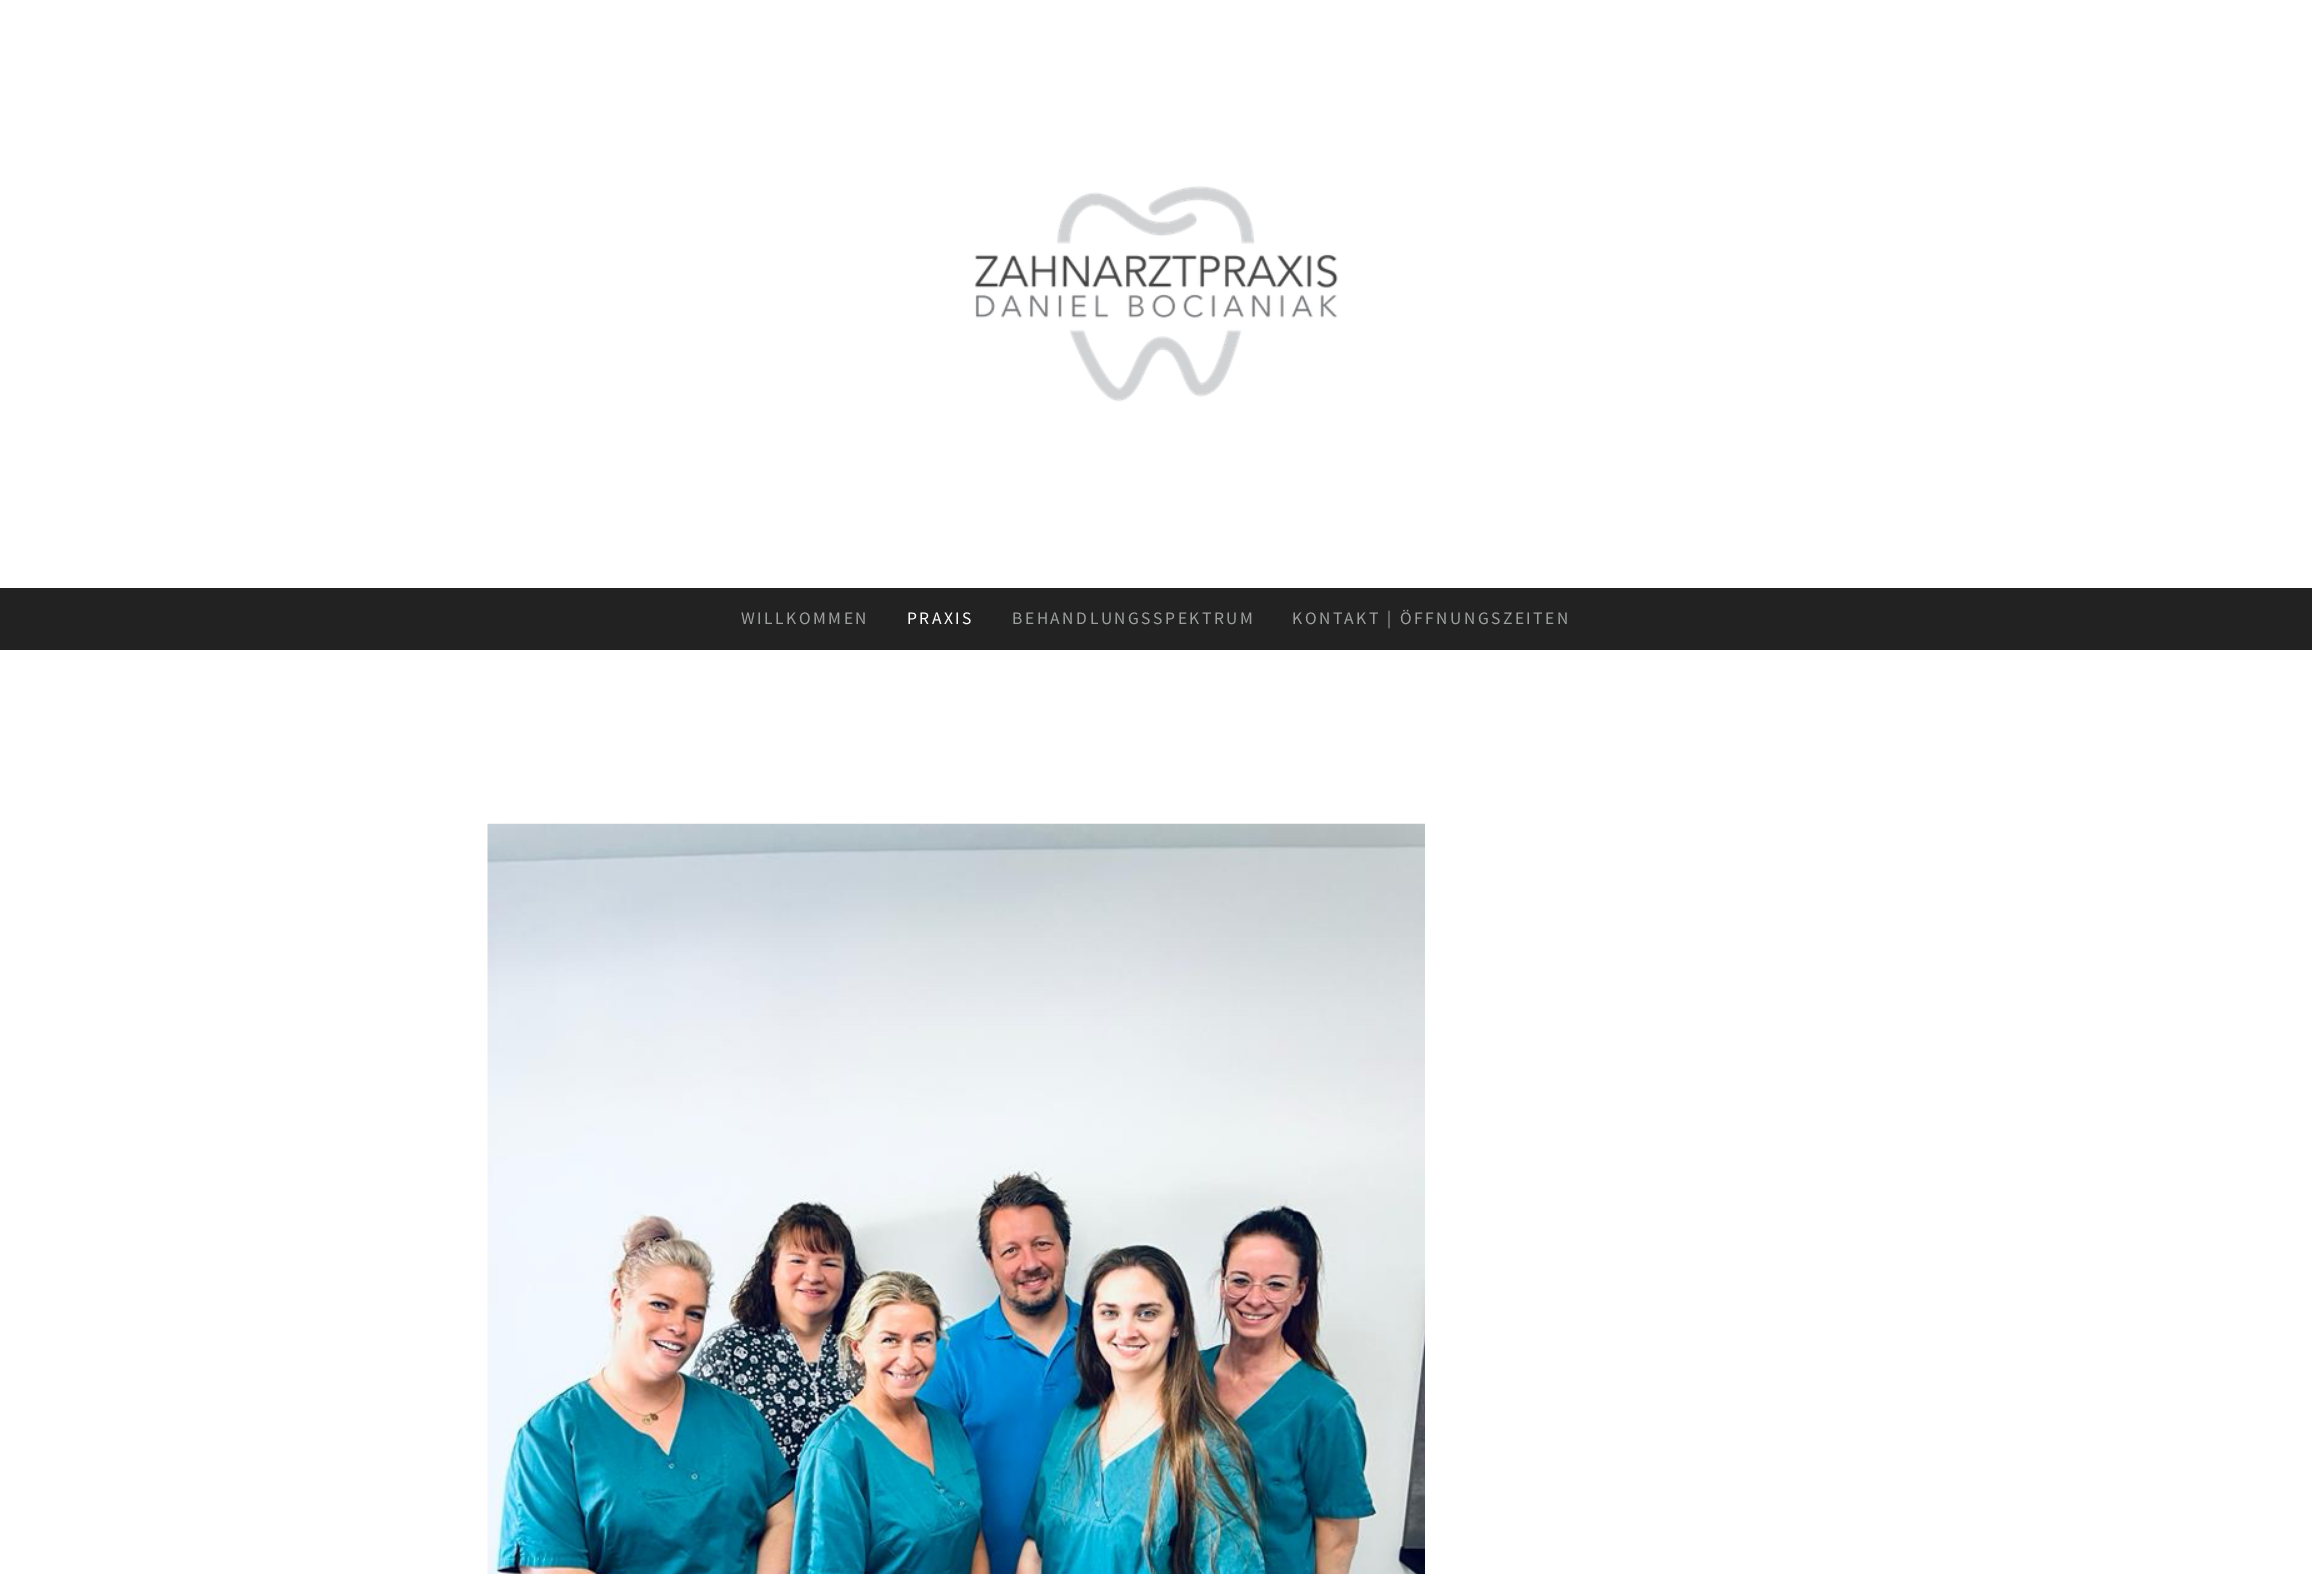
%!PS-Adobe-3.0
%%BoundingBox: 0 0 2312 1574
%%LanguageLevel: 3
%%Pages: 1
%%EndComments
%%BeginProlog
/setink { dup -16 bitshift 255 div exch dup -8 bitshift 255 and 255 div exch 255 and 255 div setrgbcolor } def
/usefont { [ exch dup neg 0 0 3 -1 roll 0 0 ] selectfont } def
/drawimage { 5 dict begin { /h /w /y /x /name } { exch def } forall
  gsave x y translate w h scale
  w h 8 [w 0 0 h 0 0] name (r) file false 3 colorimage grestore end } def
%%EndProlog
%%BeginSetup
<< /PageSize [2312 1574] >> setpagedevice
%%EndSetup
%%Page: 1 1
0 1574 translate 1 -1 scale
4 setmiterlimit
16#FFFFFF setink
0 0 2312 1574 rectfill
(img1.raw) 974 186 364 216 drawimage
16#222222 setink
0 588 2312 62 rectfill
/SourceSansPro-Regular 17.5 usefont
16#9D9E9E setink
741 624 moveto 2.5 0 (WILLKOMMEN) ashow
16#FFFFFF setink
907 624 moveto 2.5 0 (PRAXIS) ashow
16#9D9E9E setink
1012 624 moveto 2.5 0 (BEHANDLUNGSSPEKTRUM) ashow
1292 624 moveto 2.5 0 (KONTAKT | ÖFFNUNGSZEITEN) ashow
(img2.raw) 487 823 938 751 drawimage
showpage
%%EOF
